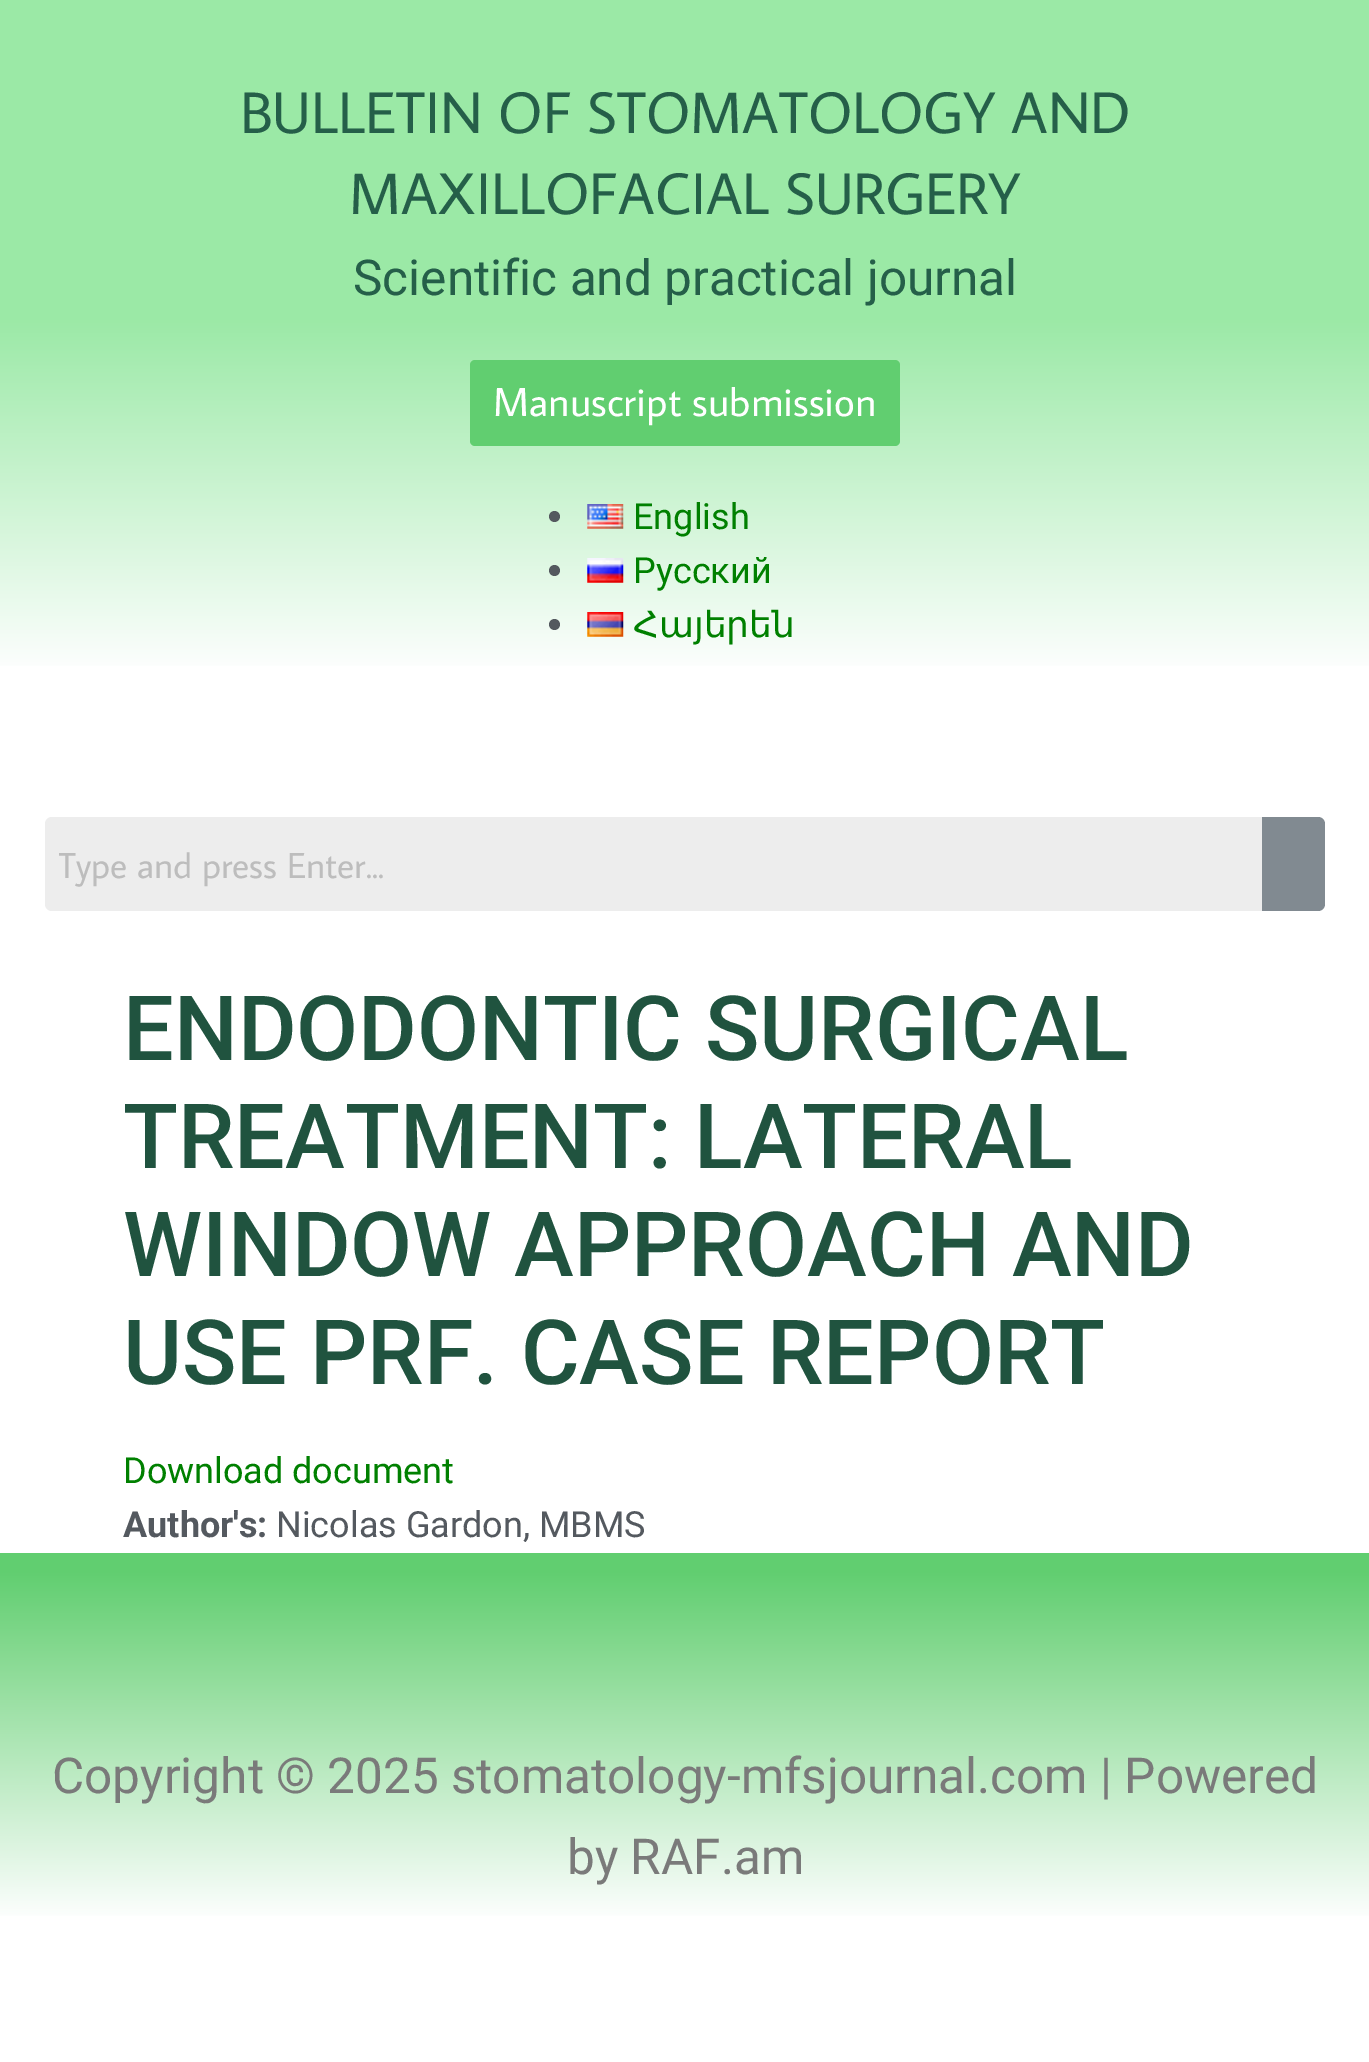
%!PS-Adobe-3.0
%%BoundingBox: 0 0 1369 2062
%%LanguageLevel: 3
%%Pages: 1
%%EndComments
%%BeginProlog
/setink { dup -16 bitshift 255 div exch dup -8 bitshift 255 and 255 div exch 255 and 255 div setrgbcolor } def
/usefont { [ exch dup neg 0 0 3 -1 roll 0 0 ] selectfont } def
/disc { newpath 0 360 arc closepath } def
/rrect { 5 dict begin { /r /h /w /y /x } { exch def } forall
  x r add y moveto x w add y 2 copy h add r arct x w add y h add x 1 index r arct
  x y h add x y r arct x y 2 copy exch w add exch r arct closepath end } def
/drawimage { 5 dict begin { /h /w /y /x /name } { exch def } forall
  gsave x y translate w h scale
  w h 8 [w 0 0 h 0 0] name (r) file false 3 colorimage grestore end } def
%%EndProlog
%%BeginSetup
<< /PageSize [1369 2062] >> setpagedevice
%%EndSetup
%%Page: 1 1
0 2062 translate 1 -1 scale
4 setmiterlimit
16#FFFFFF setink
0 0 1369 2062 rectfill
gsave 0 0 moveto 1369 0 lineto 1369 666 lineto 0 666 lineto closepath clip newpath
<< /ShadingType 2 /ColorSpace /DeviceRGB /Coords [685 0 685 675] /Extend [true true] /Function << /FunctionType 3 /Domain [0 1] /Functions [<< /FunctionType 2 /Domain [0 1] /C0 [0.608 0.914 0.651] /C1 [0.608 0.914 0.651] /N 1 >> << /FunctionType 2 /Domain [0 1] /C0 [0.608 0.914 0.651] /C1 [1 1 1] /N 1 >>] /Bounds [0.47] /Encode [0 1 0 1] >> >> shfill grestore
/AverageSans-Regular 58.5 usefont
16#255F49 setink
240 133 moveto (BULLETIN OF STOMATOLOGY AND) show
349 214 moveto (MAXILLOFACIAL SURGERY) show
/Roboto-Regular 49.5 usefont
353 295 moveto (Scientific and practical journal) show
16#61CE70 setink
470 360 430 86 5 rrect fill
/AverageSans-Regular 40.5 usefont
16#FFFFFF setink
493 416 moveto (Manuscript submission) show
16#54595F setink
554.5 516.5 5.5 disc fill
(img1.raw) 587 504 37 25 drawimage
/Roboto-Regular 36 usefont
16#008000 setink
633 529 moveto (English) show
16#54595F setink
554.5 570.5 5.5 disc fill
(img2.raw) 587 558 37 25 drawimage
16#008000 setink
633 583 moveto (Русский) show
16#54595F setink
554.5 624.5 5.5 disc fill
(img3.raw) 587 612 37 25 drawimage
/DejaVuSans-Regular 36 usefont
16#008000 setink
633 637 moveto (Հայերեն) show
16#EDEDED setink
52 817 moveto 1262 817 lineto 1262 911 lineto 52 911 lineto 48 911 45 908 45 904 curveto 45 824 lineto 45 820 48 817 52 817 curveto closepath fill
gsave
59 842 1190 45 rectclip
/AverageSans-Regular 36 usefont
16#BDBDBD setink
58 878 moveto (Type and press Enter...) show
grestore
16#818A91 setink
1262 817 moveto 1318 817 lineto 1322 817 1325 820 1325 824 curveto 1325 904 lineto 1325 908 1322 911 1318 911 curveto 1262 911 lineto closepath fill
/Roboto-Medium 90 usefont
16#20533F setink
[
    [(ENDODONTIC SURGICAL) 123 1060]
    [(TREATMENT: LATERAL) 123 1168]
    [(WINDOW APPROACH AND) 123 1276]
    [(USE PRF. CASE REPORT) 123 1384]
] { aload pop moveto show } forall
/Roboto-Regular 36 usefont
16#008000 setink
123 1483 moveto (Download document) show
/Roboto-Bold 36 usefont
16#54595F setink
123 1537 moveto (Author's:) show
/Roboto-Regular 36 usefont
276 1537 moveto (Nicolas Gardon, MBMS) show
gsave 0 1553 moveto 1369 1553 lineto 1369 1916 lineto 0 1916 lineto closepath clip newpath
<< /ShadingType 2 /ColorSpace /DeviceRGB /Coords [685 1553 685 1922] /Extend [true true] /Function << /FunctionType 3 /Domain [0 1] /Functions [<< /FunctionType 2 /Domain [0 1] /C0 [0.38 0.808 0.439] /C1 [0.38 0.808 0.439] /N 1 >> << /FunctionType 2 /Domain [0 1] /C0 [0.38 0.808 0.439] /C1 [1 1 1] /N 1 >>] /Bounds [0.05] /Encode [0 1 0 1] >> >> shfill grestore
/Roboto-Regular 49.5 usefont
16#7A7A7A setink
52 1793 moveto (Copyright © 2025 stomatology-mfsjournal.com | Powered) show
567 1874 moveto (by RAF.am) show
showpage
%%EOF
